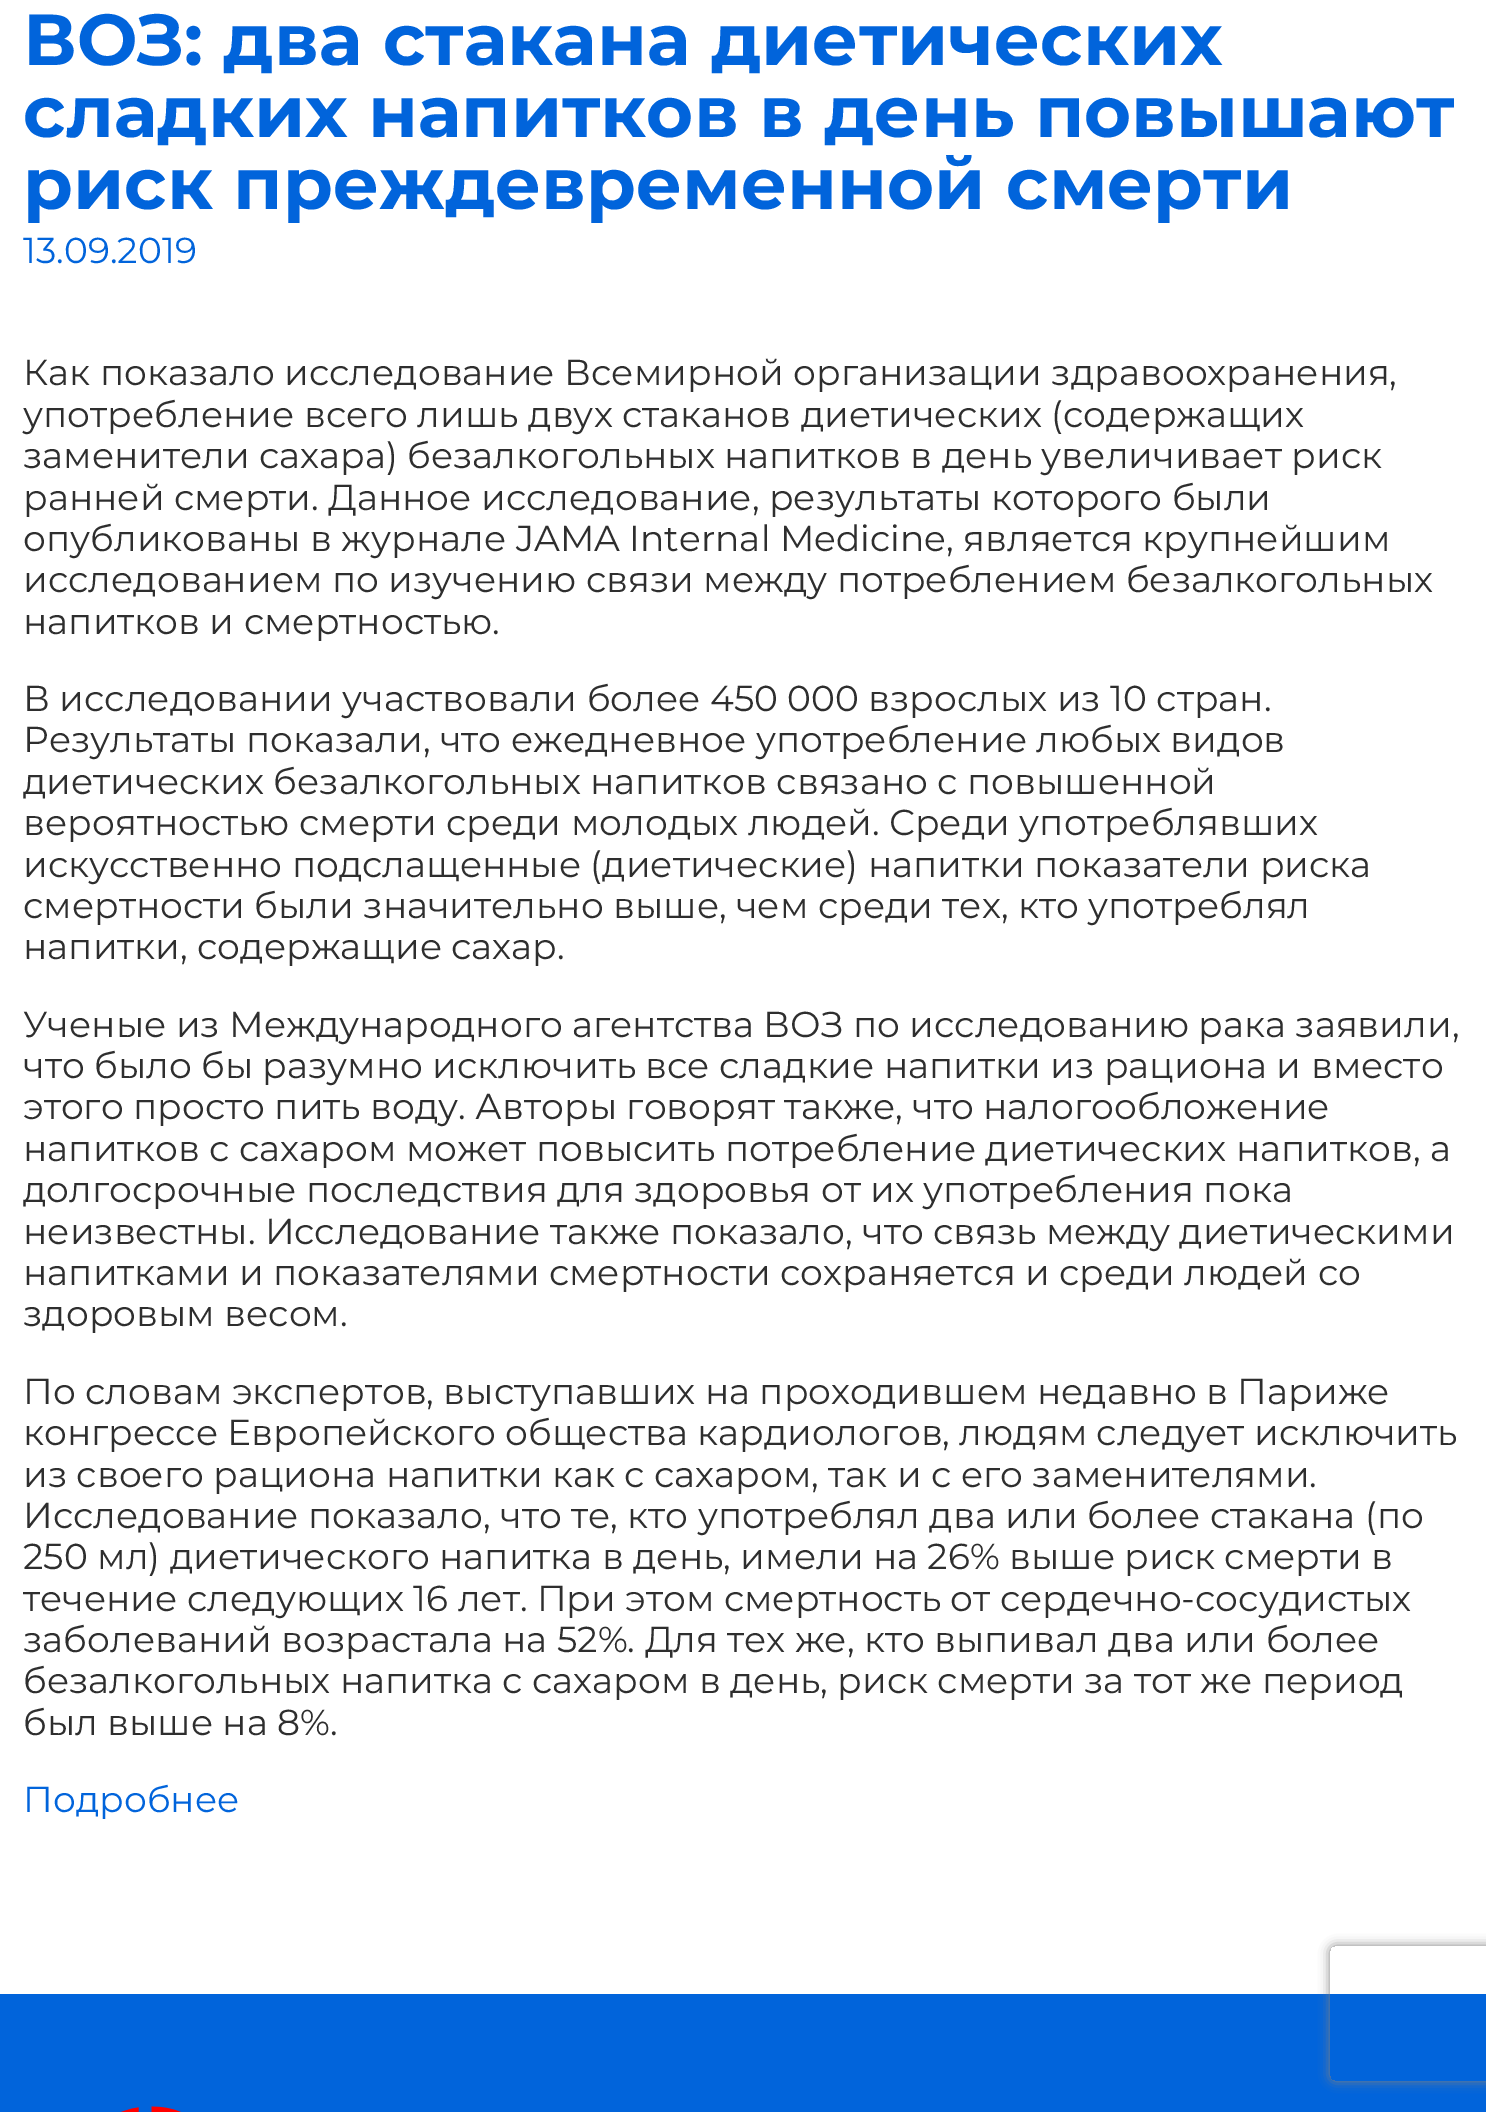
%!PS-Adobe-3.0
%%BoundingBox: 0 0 1486 2112
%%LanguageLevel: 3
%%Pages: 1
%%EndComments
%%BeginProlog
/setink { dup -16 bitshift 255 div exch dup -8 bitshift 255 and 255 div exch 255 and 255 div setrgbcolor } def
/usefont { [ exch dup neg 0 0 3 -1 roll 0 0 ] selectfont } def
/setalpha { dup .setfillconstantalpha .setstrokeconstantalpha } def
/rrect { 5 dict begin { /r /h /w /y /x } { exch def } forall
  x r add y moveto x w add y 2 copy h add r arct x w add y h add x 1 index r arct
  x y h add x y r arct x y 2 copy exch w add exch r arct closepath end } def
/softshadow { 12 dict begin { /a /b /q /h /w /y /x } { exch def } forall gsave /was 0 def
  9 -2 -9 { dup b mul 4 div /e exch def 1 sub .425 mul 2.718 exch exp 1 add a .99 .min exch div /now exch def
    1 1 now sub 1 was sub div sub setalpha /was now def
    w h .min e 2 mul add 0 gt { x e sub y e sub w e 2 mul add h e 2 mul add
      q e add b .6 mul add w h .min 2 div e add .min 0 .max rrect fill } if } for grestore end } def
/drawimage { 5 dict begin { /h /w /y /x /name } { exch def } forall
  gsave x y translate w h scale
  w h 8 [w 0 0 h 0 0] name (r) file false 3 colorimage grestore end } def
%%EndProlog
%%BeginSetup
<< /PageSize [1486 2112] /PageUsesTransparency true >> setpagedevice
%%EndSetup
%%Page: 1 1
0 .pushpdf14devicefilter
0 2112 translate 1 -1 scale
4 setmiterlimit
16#FFFFFF setink
0 0 1486 2112 rectfill
/Montserrat-Bold 72 usefont
16#0164DB setink
[
    [(ВОЗ: два стакана диетических) 23 65]
    [(сладких напитков в день повышают) 23 137]
    [(риск преждевременной смерти) 23 209]
] { aload pop moveto show } forall
/Montserrat-Regular 36 usefont
23 263 moveto (13.09.2019) show
16#2E2E2E setink
[
    [(Как показало исследование Всемирной организации здравоохранения,) 23 385]
    [(употребление всего лишь двух стаканов диетических \(содержащих) 23 427]
    [(заменители сахара\) безалкогольных напитков в день увеличивает риск) 23 468]
    [(ранней смерти. Данное исследование, результаты которого были) 23 510]
    [(опубликованы в журнале JAMA Internal Medicine, является крупнейшим) 23 551]
    [(исследованием по изучению связи между потреблением безалкогольных) 23 592]
    [(напитков и смертностью.) 23 634]
    [(В исследовании участвовали более 450 000 взрослых из 10 стран.) 23 711]
    [(Результаты показали, что ежедневное употребление любых видов) 23 752]
    [(диетических безалкогольных напитков связано с повышенной) 23 794]
    [(вероятностью смерти среди молодых людей. Среди употреблявших) 23 835]
    [(искусственно подслащенные \(диетические\) напитки показатели риска) 23 877]
    [(смертности были значительно выше, чем среди тех, кто употреблял) 23 918]
    [(напитки, содержащие сахар.) 23 959]
    [(Ученые из Международного агентства ВОЗ по исследованию рака заявили,) 23 1037]
    [(что было бы разумно исключить все сладкие напитки из рациона и вместо) 23 1078]
    [(этого просто пить воду. Авторы говорят также, что налогообложение) 23 1119]
    [(напитков с сахаром может повысить потребление диетических напитков, а) 23 1161]
    [(долгосрочные последствия для здоровья от их употребления пока) 23 1202]
    [(неизвестны. Исследование также показало, что связь между диетическими) 23 1244]
    [(напитками и показателями смертности сохраняется и среди людей со) 23 1285]
    [(здоровым весом.) 23 1326]
    [(По словам экспертов, выступавших на проходившем недавно в Париже) 23 1404]
    [(конгрессе Европейского общества кардиологов, людям следует исключить) 23 1445]
    [(из своего рациона напитки как с сахаром, так и с его заменителями.) 23 1487]
    [(Исследование показало, что те, кто употреблял два или более стакана \(по) 23 1528]
    [(250 мл\) диетического напитка в день, имели на 26% выше риск смерти в) 23 1569]
    [(течение следующих 16 лет. При этом смертность от сердечно-сосудистых) 23 1611]
    [(заболеваний возрастала на 52%. Для тех же, кто выпивал два или более) 23 1652]
    [(безалкогольных напитка с сахаром в день, риск смерти за тот же период) 23 1693]
    [(был выше на 8%.) 23 1735]
] { aload pop moveto show } forall
16#0164DB setink
23 1812 moveto (Подробнее) show
0 1994 1486 118 rectfill
gsave
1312 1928 moveto 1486 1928 lineto 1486 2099 lineto 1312 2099 lineto closepath 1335 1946 moveto 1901 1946 lineto 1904 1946 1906 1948 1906 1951 curveto 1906 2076 lineto 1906 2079 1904 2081 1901 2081 curveto 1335 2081 lineto 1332 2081 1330 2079 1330 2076 curveto 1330 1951 lineto 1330 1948 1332 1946 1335 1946 curveto closepath eoclip newpath
16#808080 setink
1330 1946 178 135 5 5.5 1 softshadow
grestore
(img1.raw) 121 2106 60 6 drawimage
.poppdf14devicefilter showpage
%%EOF
